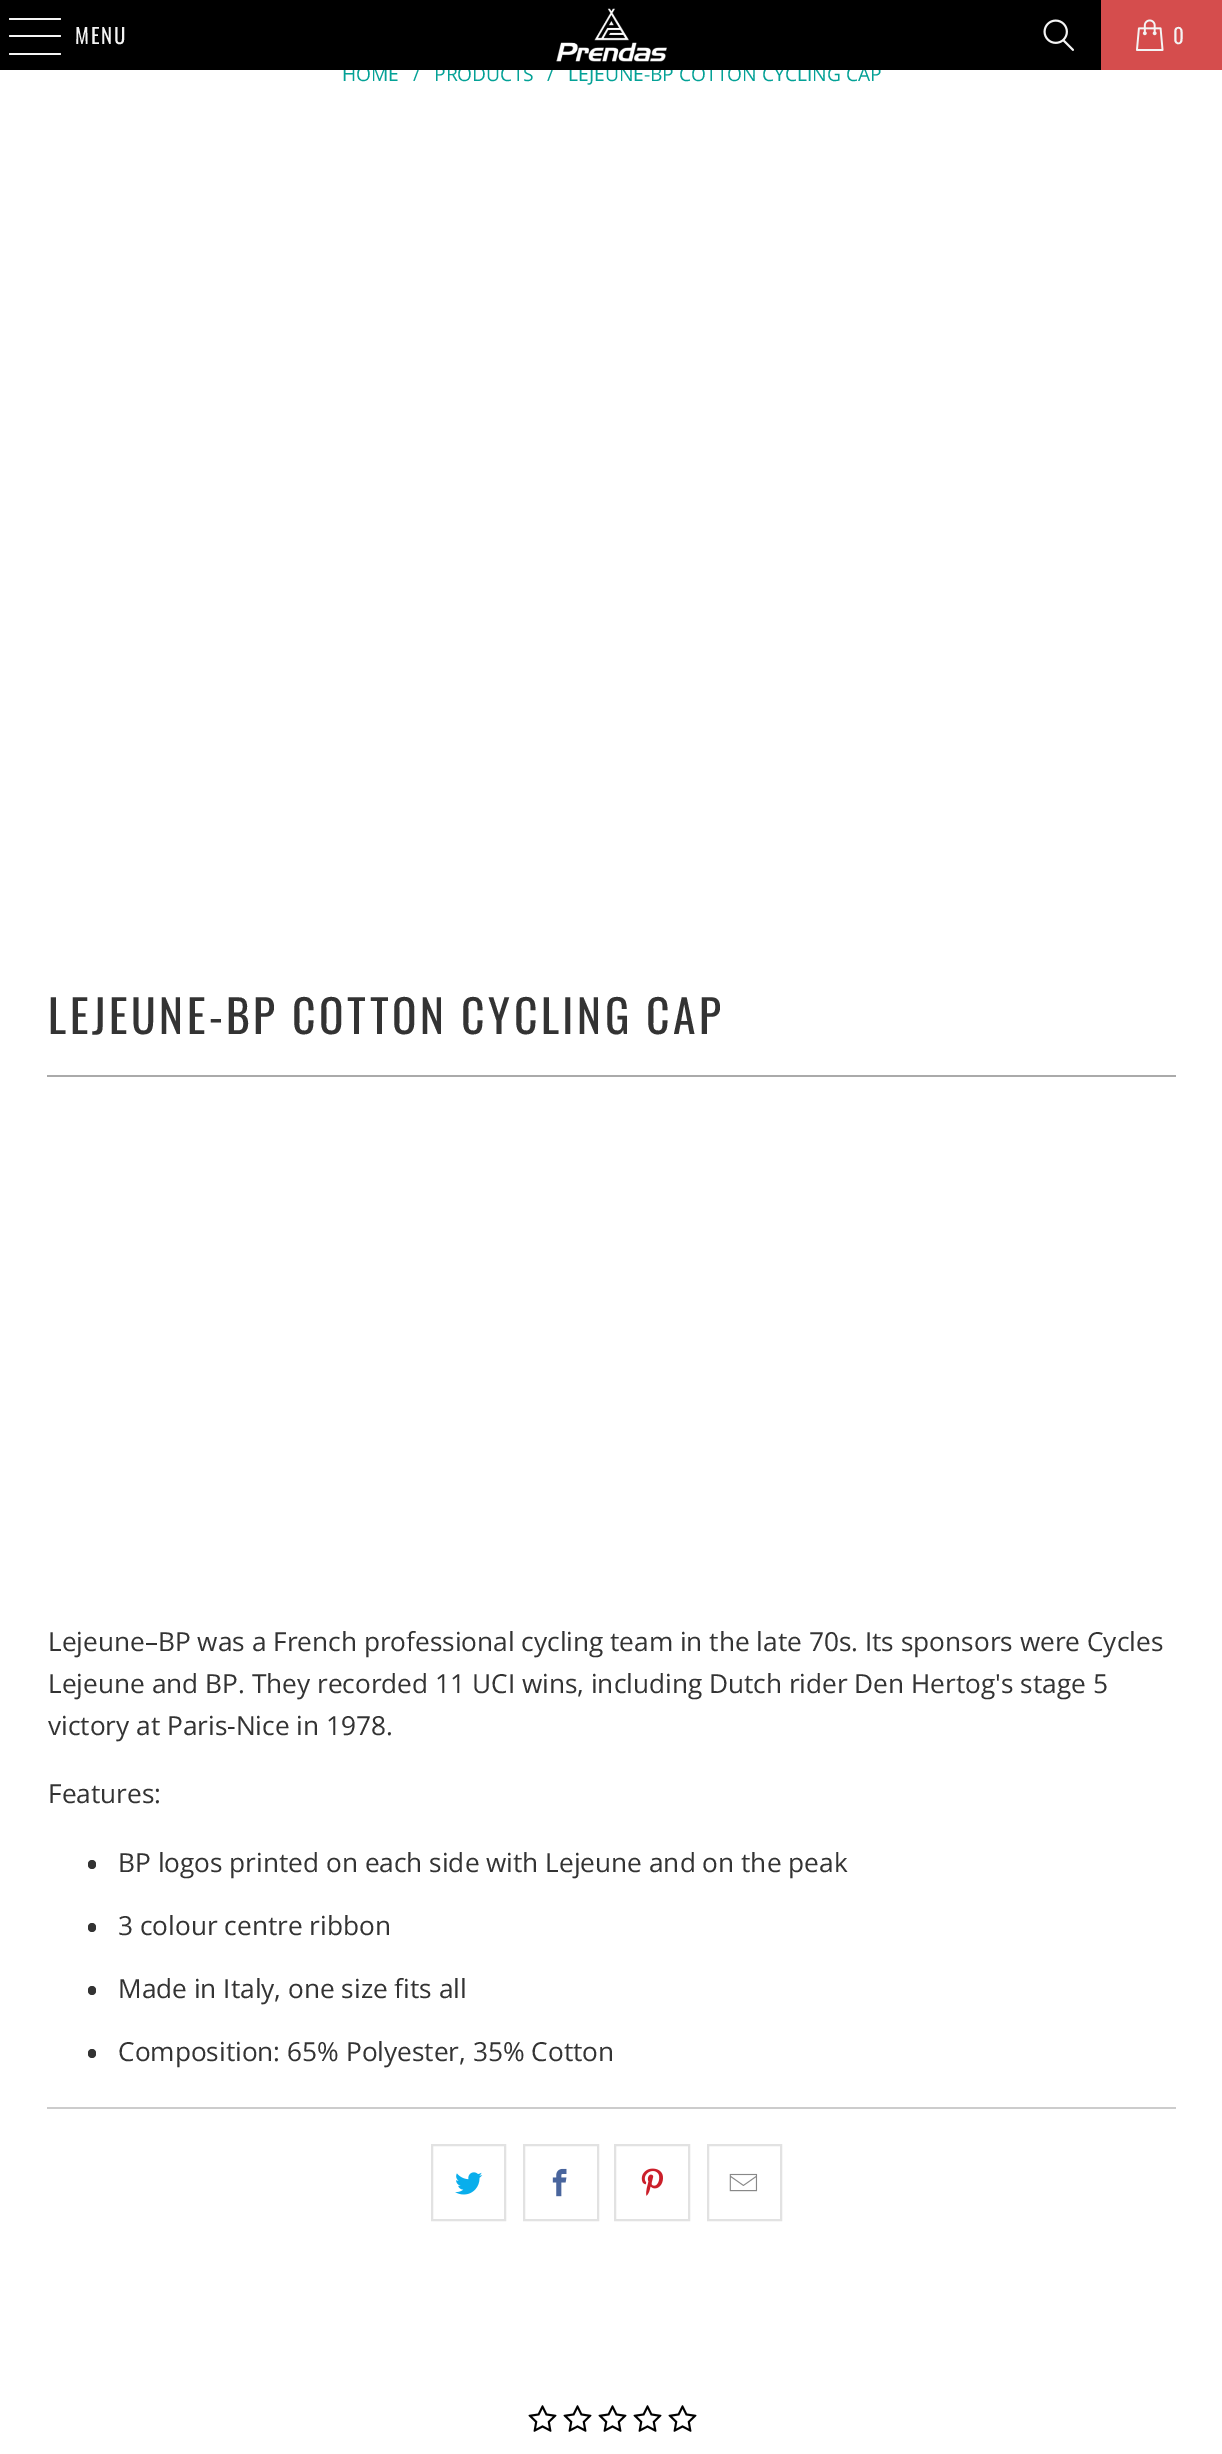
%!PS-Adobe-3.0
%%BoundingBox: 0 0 1222 2454
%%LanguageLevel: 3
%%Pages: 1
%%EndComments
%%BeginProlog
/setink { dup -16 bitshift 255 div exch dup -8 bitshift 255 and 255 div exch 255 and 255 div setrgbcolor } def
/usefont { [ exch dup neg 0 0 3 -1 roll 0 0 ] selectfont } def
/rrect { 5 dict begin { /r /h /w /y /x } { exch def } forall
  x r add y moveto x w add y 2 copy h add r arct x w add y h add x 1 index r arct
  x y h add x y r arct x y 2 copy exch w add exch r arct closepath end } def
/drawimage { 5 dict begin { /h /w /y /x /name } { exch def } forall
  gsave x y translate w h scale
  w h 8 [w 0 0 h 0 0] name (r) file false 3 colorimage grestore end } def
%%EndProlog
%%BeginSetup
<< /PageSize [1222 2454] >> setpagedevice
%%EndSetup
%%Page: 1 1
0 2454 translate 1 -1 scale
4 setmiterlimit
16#FFFFFF setink
0 0 1222 2454 rectfill
/OpenSans-Regular 19.25 usefont
16#03A196 setink
[
    [(HOME) 342 81]
    [(/) 413 81]
    [(PRODUCTS) 434 81]
    [(/) 547 81]
    [(LEJEUNE-BP COTTON CYCLING CAP) 568 81]
] { aload pop moveto show } forall
16#000000 setink
0 0 1101 70 rectfill
16#F4F4F4 setink
9 18 52 2 1 rrect fill
9 35 52 2 1 rrect fill
9 53 52 2 1 rrect fill
/Oswald-Regular 21 usefont
75 44 moveto 2 0 (MENU) ashow
(img1.raw) 556 8 111 54 drawimage
(img2.raw) 1043 19 31 32 drawimage
16#D54D4D setink
1101 0 121 70 rectfill
(img3.raw) 1136 19 28 32 drawimage
16#F4F4F4 setink
1173 44 moveto 2 0 (0) ashow
/Oswald-Regular 45.5 usefont
16#333333 setink
48 1034 moveto 3.5 0 (LEJEUNE-BP COTTON CYCLING CAP) ashow
16#AAAAAA setink
47 1075 1129 2 rectfill
/OpenSans-Regular 26.25 usefont
16#333333 setink
[
    [(Lejeune–BP was a French professional cycling team in the late 70s. Its sponsors were Cycles) 48 1651]
    [(Lejeune and BP. They recorded 11 UCI wins, including Dutch rider Den Hertog's stage 5) 48 1693]
    [(victory at Paris-Nice in 1978.) 48 1735]
    [(Features:) 48 1803]
] { aload pop moveto show } forall
88 1860 8 9 4 rrect fill
118 1872 moveto (BP logos printed on each side with Lejeune and on the peak) show
88 1923 8 9 4 rrect fill
118 1935 moveto (3 colour centre ribbon) show
88 1986 8 9 4 rrect fill
118 1998 moveto (Made in Italy, one size fits all) show
88 2049 8 9 4 rrect fill
118 2061 moveto (Composition: 65% Polyester, 35% Cotton) show
16#CCCCCC setink
47 2107 1129 2 rectfill
16#E2E2E2 setink
2 setlinewidth
432 2145 73 75 rectstroke
(img4.raw) 455 2172 28 23 drawimage
524 2145 74 75 rectstroke
(img5.raw) 552 2168 15 29 drawimage
615 2145 74 75 rectstroke
(img6.raw) 641 2168 22 28 drawimage
708 2145 73 75 rectstroke
(img7.raw) 729 2173 29 19 drawimage
(img8.raw) 528 2405 29 27 drawimage
(img8.raw) 563 2405 29 27 drawimage
(img8.raw) 598 2405 29 27 drawimage
(img8.raw) 633 2405 29 27 drawimage
(img8.raw) 668 2405 29 27 drawimage
showpage
%%EOF
